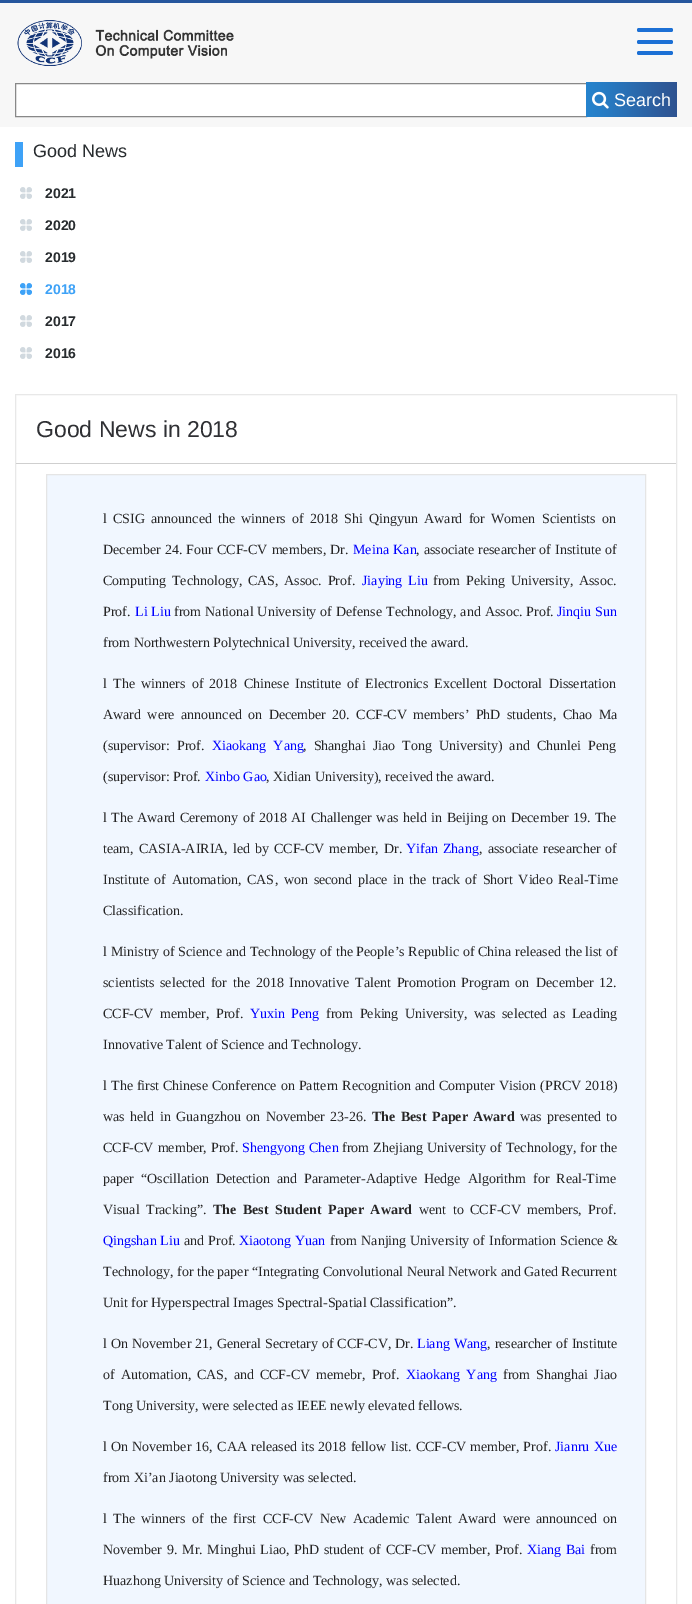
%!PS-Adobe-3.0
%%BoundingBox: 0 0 692 1604
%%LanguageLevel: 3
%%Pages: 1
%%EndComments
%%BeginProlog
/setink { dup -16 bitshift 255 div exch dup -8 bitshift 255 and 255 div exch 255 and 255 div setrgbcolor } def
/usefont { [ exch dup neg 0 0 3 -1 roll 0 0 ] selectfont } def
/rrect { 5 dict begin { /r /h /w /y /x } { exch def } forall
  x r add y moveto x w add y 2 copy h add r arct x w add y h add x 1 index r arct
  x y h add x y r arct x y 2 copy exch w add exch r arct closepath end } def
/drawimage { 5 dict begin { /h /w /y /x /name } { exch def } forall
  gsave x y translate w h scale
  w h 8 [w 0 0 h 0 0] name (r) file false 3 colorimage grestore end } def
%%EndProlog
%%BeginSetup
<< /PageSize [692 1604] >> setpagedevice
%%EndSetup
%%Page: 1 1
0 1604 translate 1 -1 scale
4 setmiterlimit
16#F7F7F7 setink
0 0 692 1604 rectfill
16#26569D setink
0 0 692 3 rectfill
(img1.raw) 17 20 65 46 drawimage
(img2.raw) 95 29 139 30 drawimage
16#1C70D5 setink
637 28 36 4 2 rrect fill
637 40 36 4 2 rrect fill
637 51 36 4 2 rrect fill
16#FFFFFF setink
15.5 83.5 moveto 586.5 83.5 lineto 586.5 116.5 lineto 15.5 116.5 lineto closepath gsave fill grestore
16#888888 setink
stroke
(img3.raw) 586 82 91 35 drawimage
(img4.raw) 592 91 17 18 drawimage
/LiberationSans-Regular 18 usefont
16#FFFFFF setink
614 106 moveto (Search) show
0 127 692 1477 rectfill
16#3EA2F7 setink
15 142 8 25 rectfill
16#282C2F setink
33 157 moveto (Good News) show
(img5.raw) 20 187 12 12 drawimage
/LiberationSans-Bold 14 usefont
45 198 moveto (2021) show
(img5.raw) 20 219 12 12 drawimage
45 230 moveto (2020) show
(img5.raw) 20 251 12 12 drawimage
45 262 moveto (2019) show
(img6.raw) 20 283 12 12 drawimage
16#3EA2F7 setink
45 294 moveto (2018) show
(img5.raw) 20 315 12 12 drawimage
16#282C2F setink
45 326 moveto (2017) show
(img5.raw) 20 347 12 12 drawimage
45 358 moveto (2016) show
16#E8E8E8 setink
15.5 394.5 661 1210 rectstroke
16#CFCFCF setink
16 463 660 1 rectfill
/LiberationSans-Regular 23 usefont
16#2F3034 setink
36 437 moveto (Good News in 2018) show
16#F1F7FF setink
46.5 474.5 moveto 645.5 474.5 lineto 645.5 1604.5 lineto 46.5 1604.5 lineto closepath gsave fill grestore
16#E5E5E5 setink
stroke
/LiberationSerif-Regular 14 usefont
16#262525 setink
103 523 moveto (l) show
113 523 moveto 2.75 0 32 (CSIG announced the winners of 2018 Shi Qingyun Award for Women Scientists on) widthshow
103 554 moveto 1 0 32 (December 24.) widthshow
186 554 moveto (Four) show
217 554 moveto 0.5 0 32 (CCF-CV members, Dr.) widthshow
16#0000FF setink
353 554 moveto 1 0 32 (Meina Kan) widthshow
16#262525 setink
416 554 moveto 0.5 0 32 (, associate researcher of Institute of) widthshow
103 585 moveto 2.25 0 32 (Computing Technology,) widthshow
248 585 moveto (CAS) show
275 585 moveto 2.25 0 32 (, Assoc. Prof.) widthshow
16#0000FF setink
362 585 moveto 2.25 0 32 (Jiaying Liu) widthshow
16#262525 setink
433 585 moveto 2.25 0 32 (from Peking University, Assoc.) widthshow
103 616 moveto (Prof.) show
16#0000FF setink
135 616 moveto 0.5 0 32 (Li Liu) widthshow
16#262525 setink
174 616 moveto 0.5 0 32 (from National University of Defense Technology, and Assoc. Prof.) widthshow
16#0000FF setink
557 616 moveto 0.5 0 32 (Jinqiu Sun) widthshow
16#262525 setink
103 647 moveto (from Northwestern Polytechnical University, received the award.) show
103 688 moveto (l) show
113 688 moveto 2.75 0 32 (The winners of 2018 Chinese Institute of Electronics Excellent Doctoral Dissertation) widthshow
103 719 moveto 2.9 0 32 (Award were announced on December 20. CCF-CV members’ PhD students, Chao Ma) widthshow
103 750 moveto 3.5 0 32 (\(supervisor: Prof.) widthshow
16#0000FF setink
212 750 moveto 3.5 0 32 (Xiaokang Yang) widthshow
16#262525 setink
303 750 moveto 3.5 0 32 (, Shanghai Jiao Tong University\) and Chunlei Peng) widthshow
103 781 moveto (\(supervisor: Prof.) show
16#0000FF setink
205 781 moveto (Xinbo Gao) show
16#262525 setink
266 781 moveto (, Xidian University\), received the award.) show
103 822 moveto (l) show
111 822 moveto 1 0 32 (The Award Ceremony of 2018 AI Challenger was held in Beijing on December 19. The) widthshow
103 853 moveto (team,) show
139 853 moveto (CAS) show
166 853 moveto 1.5 0 32 (IA-AIRIA, led by CCF-CV member, Dr.) widthshow
16#0000FF setink
406 853 moveto 1.5 0 32 (Yifan Zhang) widthshow
16#262525 setink
479 853 moveto 1.5 0 32 (, associate researcher of) widthshow
103 884 moveto 2 0 32 (Institute of Automation,) widthshow
247 884 moveto (CAS) show
275 884 moveto 2 0 32 (, won second place in the track of Short Video Real-Time) widthshow
103 915 moveto (Classification.) show
103 956 moveto (l) show
111 956 moveto 0.25 0 32 (Ministry of Science and Technology of the People’s Republic of China released the) widthshow
585 956 moveto (list of) show
103 987 moveto (scientists) show
160 987 moveto 2.25 0 32 (selected for the 2018 Innovative Talent Promotion Program on) widthshow
536 987 moveto 2.25 0 32 (December 12.) widthshow
103 1018 moveto 2.9 0 32 (CCF-CV member, Prof.) widthshow
16#0000FF setink
250 1018 moveto 2.9 0 32 (Yuxin Peng) widthshow
16#262525 setink
326 1018 moveto 2.9 0 32 (from Peking University, was selected as Leading) widthshow
103 1049 moveto (Innovative Talent of Science and Technology.) show
103 1090 moveto (l) show
111 1090 moveto 0.5 0 32 (The first) widthshow
163 1090 moveto 0.5 0 32 (Chinese Conference on Pattern Recognition and Computer Vision \(PRCV 2018\)) widthshow
103 1121 moveto 2 0 32 (was held in Guangzhou on November 23-26.) widthshow
/LiberationSerif-Bold 14 usefont
372 1121 moveto 2 0 32 (The Best Paper Award) widthshow
/LiberationSerif-Regular 14 usefont
520 1121 moveto 2 0 32 (was presented to) widthshow
103 1152 moveto 0.5 0 32 (CCF-CV member, Prof.) widthshow
16#0000FF setink
242 1152 moveto 0.5 0 32 (Shengyong Chen) widthshow
16#262525 setink
342 1152 moveto 0.5 0 32 (from Zhejiang University of Technology, for the) widthshow
103 1183 moveto 3.5 0 32 (paper “Oscillation Detection and Parameter-Adaptive Hedge Algorithm for Real-Time) widthshow
103 1214 moveto 3 0 32 (Visual Tracking”.) widthshow
/LiberationSerif-Bold 14 usefont
213 1214 moveto 3 0 32 (The Best Student Paper Award) widthshow
/LiberationSerif-Regular 14 usefont
419 1214 moveto 3 0 32 (went to CCF-CV members, Prof.) widthshow
16#0000FF setink
103 1245 moveto (Qingshan Liu) show
16#262525 setink
184 1245 moveto 0.5 0 32 (and Prof.) widthshow
16#0000FF setink
239 1245 moveto (Xiaotong Yuan) show
16#262525 setink
330 1245 moveto 0.5 0 32 (from Nanjing University of Information Science &) widthshow
[
    [(Technology, for the paper “Integrating Convolutional Neural Network and Gated Recurrent) 103 1276]
    [(Unit for Hyperspectral Images Spectral-Spatial Classification”.) 103 1307]
    [(l) 103 1348]
] { aload pop moveto show } forall
111 1348 moveto 0.5 0 32 (On November 2) widthshow
202 1348 moveto (1) show
209 1348 moveto 0.5 0 32 (, General Secretary of CCF-CV, Dr.) widthshow
16#0000FF setink
417 1348 moveto 0.5 0 32 (Liang Wang) widthshow
16#262525 setink
487 1348 moveto 0.5 0 32 (, researcher of Institute) widthshow
103 1379 moveto 2.5 0 32 (of Automation,) widthshow
197 1379 moveto (CAS) show
224 1379 moveto 2.5 0 32 (, and CCF-CV memebr, Prof.) widthshow
16#0000FF setink
406 1379 moveto 2.5 0 32 (Xiaokang Yang) widthshow
16#262525 setink
503 1379 moveto 2.5 0 32 (from Shanghai Jiao) widthshow
103 1410 moveto (Tong University, were selected as IEEE newly elevated fellows.) show
103 1451 moveto (l) show
111 1451 moveto 0.5 0 32 (On November 16, C) widthshow
[
    [(AA) 227 1451]
    [(released) 251 1451]
    [(its) 301 1451]
] { aload pop moveto show } forall
318 1451 moveto 1 0 32 (2018 fellow) widthshow
391 1451 moveto (list) show
408 1451 moveto 0.5 0 32 (. CCF-CV member, Prof.) widthshow
16#0000FF setink
555 1451 moveto 1 0 32 (Jianru Xue) widthshow
16#262525 setink
103 1482 moveto (from Xi’an Jiaotong University was selected.) show
103 1523 moveto (l) show
113 1523 moveto 2.9 0 32 (The winners of the first) widthshow
263 1523 moveto 2.9 0 32 (CCF-CV New Academic Talent Award were announced on) widthshow
103 1554 moveto 1.25 0 32 (November 9. Mr. Minghui Liao, PhD student of CCF-CV member, Prof.) widthshow
16#0000FF setink
527 1554 moveto 1 0 32 (Xiang Bai) widthshow
16#262525 setink
590 1554 moveto (from) show
103 1585 moveto (Huazhong University of Science and Technology, was selected.) show
showpage
%%EOF
